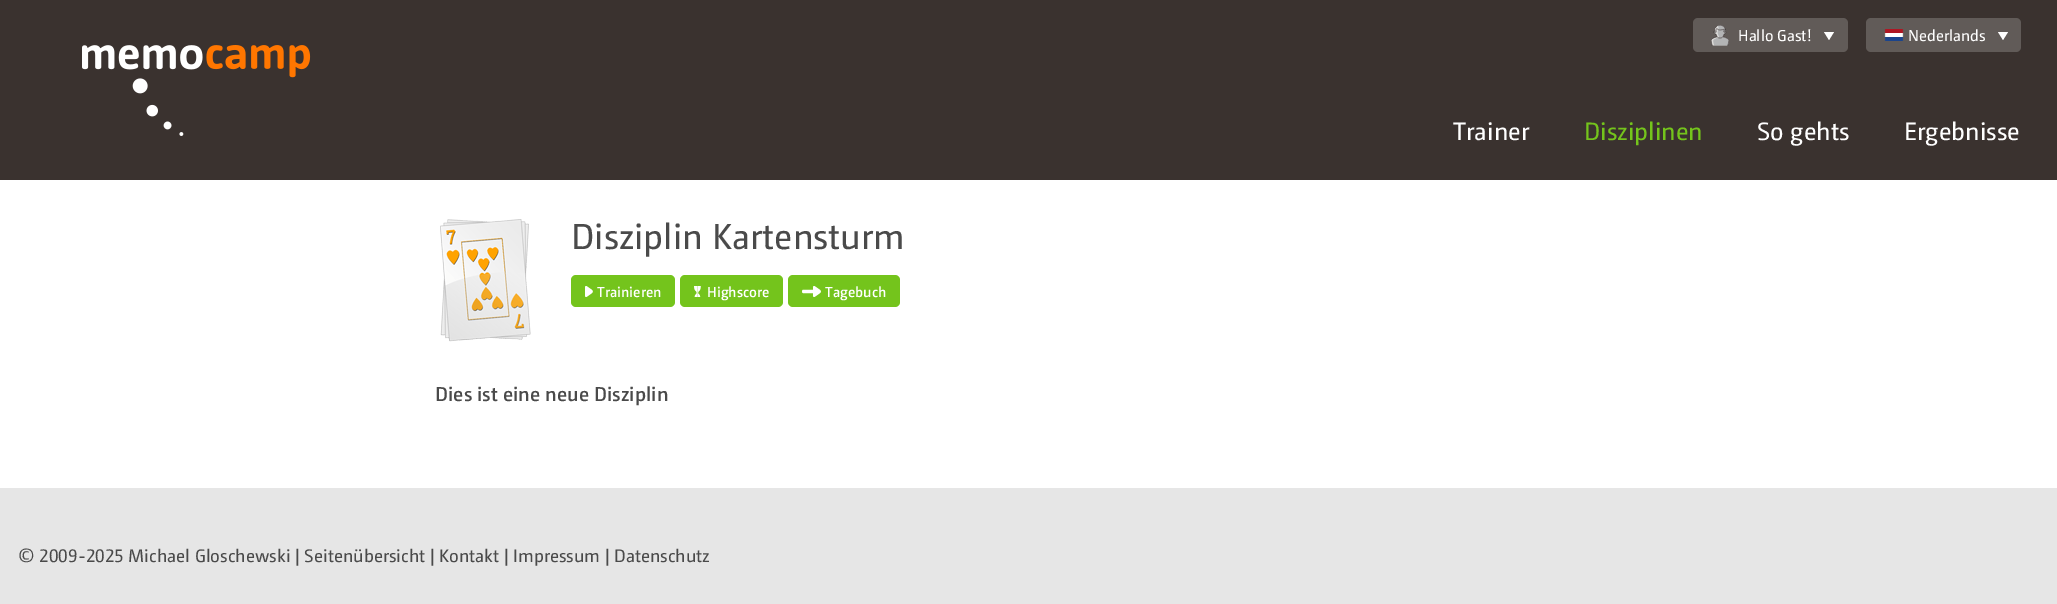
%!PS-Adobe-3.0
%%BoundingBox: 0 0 2057 604
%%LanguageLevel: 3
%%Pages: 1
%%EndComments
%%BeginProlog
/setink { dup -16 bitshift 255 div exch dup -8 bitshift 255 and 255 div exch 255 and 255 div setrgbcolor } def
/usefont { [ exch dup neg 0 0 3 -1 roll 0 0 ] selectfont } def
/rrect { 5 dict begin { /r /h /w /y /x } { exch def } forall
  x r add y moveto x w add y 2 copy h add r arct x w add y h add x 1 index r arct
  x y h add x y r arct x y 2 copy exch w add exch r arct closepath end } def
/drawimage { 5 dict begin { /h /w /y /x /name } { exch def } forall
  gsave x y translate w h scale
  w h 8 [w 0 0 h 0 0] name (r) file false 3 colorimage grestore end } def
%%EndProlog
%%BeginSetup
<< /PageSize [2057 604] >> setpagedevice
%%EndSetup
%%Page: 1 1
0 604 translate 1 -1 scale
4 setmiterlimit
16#FFFFFF setink
0 0 2057 604 rectfill
16#3A322F setink
0 0 2057 180 rectfill
(img1.raw) 82 45 229 91 drawimage
16#615B58 setink
1693 18 155 34 5 rrect fill
(img2.raw) 1711 25 18 21 drawimage
/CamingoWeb-Regular 15.75 usefont
16#FFFFFF setink
1738 41 moveto (Hallo Gast!) show
1824 32 moveto 1834 32 lineto 1829 40 lineto closepath fill
16#615B58 setink
1866 18 155 34 5 rrect fill
(img3.raw) 1884 29 20 12 drawimage
16#FFFFFF setink
1908 41 moveto (Nederlands) show
1998 32 moveto 2008 32 lineto 2003 40 lineto closepath fill
/CamingoWeb-Regular 25 usefont
1453 140 moveto (Trainer) show
16#74C41C setink
1584 140 moveto (Disziplinen) show
16#FFFFFF setink
1757 140 moveto (So gehts) show
1904 140 moveto (Ergebnisse) show
(img4.raw) 440 219 91 123 drawimage
/CamingoWeb-Regular 36 usefont
16#4A4A4A setink
571 249 moveto (Disziplin Kartensturm) show
16#74C41C setink
571 275 104 32 5 rrect fill
(img5.raw) 585 286 8 11 drawimage
/CamingoWeb-SemiBold 14.5 usefont
16#FFFFFF setink
597 297 moveto (Trainieren) show
16#74C41C setink
680 275 103 32 5 rrect fill
(img6.raw) 694 286 7 11 drawimage
16#FFFFFF setink
707 297 moveto (Highscore) show
16#74C41C setink
788 275 112 32 5 rrect fill
(img7.raw) 802 286 19 11 drawimage
16#FFFFFF setink
825 297 moveto (Tagebuch) show
/CamingoWeb-SemiBold 20 usefont
16#4A4A4A setink
435 401 moveto (Dies ist eine neue Disziplin) show
16#E6E6E6 setink
0 488 2057 116 rectfill
/CamingoWeb-Regular 18 usefont
16#4A4A4A setink
18 562 moveto (© 2009-2025 Michael Gloschewski | Seitenübersicht | Kontakt | Impressum | Datenschutz) show
showpage
%%EOF
